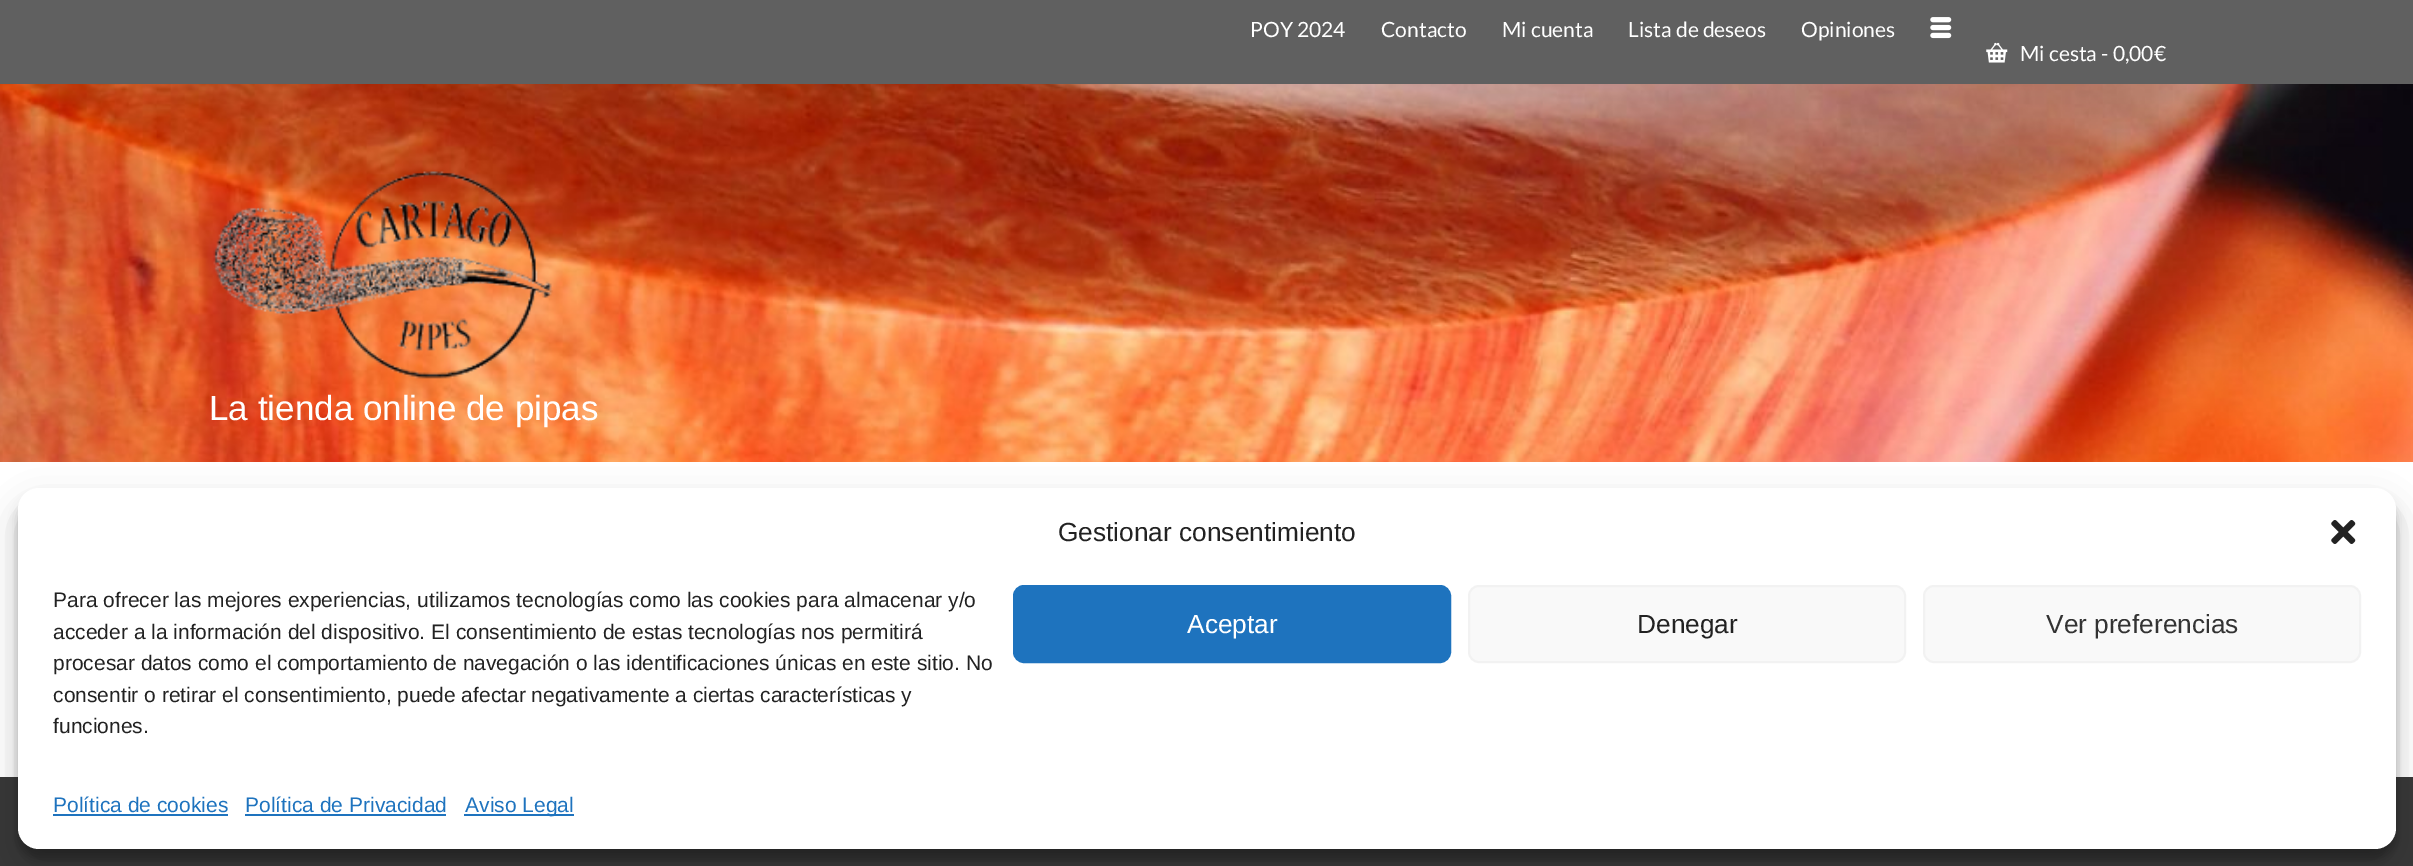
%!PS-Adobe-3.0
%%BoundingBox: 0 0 2413 866
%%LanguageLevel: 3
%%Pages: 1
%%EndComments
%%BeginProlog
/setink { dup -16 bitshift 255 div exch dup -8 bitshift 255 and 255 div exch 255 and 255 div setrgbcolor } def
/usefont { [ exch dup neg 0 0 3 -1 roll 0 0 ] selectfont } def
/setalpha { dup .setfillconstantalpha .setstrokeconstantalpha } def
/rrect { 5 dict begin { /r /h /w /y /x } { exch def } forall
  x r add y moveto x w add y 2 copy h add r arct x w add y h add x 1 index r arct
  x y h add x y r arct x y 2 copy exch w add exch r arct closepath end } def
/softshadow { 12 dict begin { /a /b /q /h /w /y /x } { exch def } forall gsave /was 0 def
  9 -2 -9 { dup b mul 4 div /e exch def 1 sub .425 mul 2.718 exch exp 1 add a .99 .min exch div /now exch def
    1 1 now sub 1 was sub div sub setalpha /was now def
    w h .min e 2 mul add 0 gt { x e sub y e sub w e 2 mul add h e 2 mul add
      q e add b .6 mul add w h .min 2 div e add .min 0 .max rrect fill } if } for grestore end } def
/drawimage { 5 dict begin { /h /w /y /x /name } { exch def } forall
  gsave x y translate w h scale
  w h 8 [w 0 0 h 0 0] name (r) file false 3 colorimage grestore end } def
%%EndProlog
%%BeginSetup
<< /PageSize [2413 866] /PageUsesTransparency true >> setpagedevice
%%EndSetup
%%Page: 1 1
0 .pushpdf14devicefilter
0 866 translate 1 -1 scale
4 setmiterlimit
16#FFFFFF setink
0 0 2413 866 rectfill
(img1.raw) 0 84 2413 378 drawimage
16#606060 setink
0 0 2413 84 rectfill
/Lato-Regular 21 usefont
16#FFFFFF setink
[
    [(POY 2024) 1250 37]
    [(Contacto) 1381 37]
    [(Mi cuenta) 1502 37]
    [(Lista de deseos) 1628 37]
    [(Opiniones) 1801 37]
] { aload pop moveto show } forall
(img2.raw) 1930 17 22 22 drawimage
(img3.raw) 1986 42 22 21 drawimage
2020 61 moveto (Mi cesta - 0,00€) show
(img4.raw) 213 171 340 208 drawimage
/LiberationSans-Regular 35 usefont
209 420 moveto (La tienda online de pipas) show
16#373737 setink
0 777 2413 89 rectfill
16#000000 setink
18 499 2378 360 21 5 0.23 softshadow
18 506 2378 360 21 17.5 0.19 softshadow
16#FFFFFF setink
18 488 2378 361 21 rrect fill
/LiberationSans-Regular 26.25 usefont
16#222222 setink
1058 541 moveto (Gestionar consentimiento) show
(img5.raw) 2331 520 25 24 drawimage
/LiberationSans-Regular 21 usefont
[
    [(Para ofrecer las mejores experiencias, utilizamos tecnologías como las cookies para almacenar y/o) 53 607]
    [(acceder a la información del dispositivo. El consentimiento de estas tecnologías nos permitirá) 53 639]
    [(procesar datos como el comportamiento de navegación o las identificaciones únicas en este sitio. No) 53 670]
    [(consentir o retirar el consentimiento, puede afectar negativamente a ciertas características y) 53 702]
    [(funciones.) 53 733]
] { aload pop moveto show } forall
16#1E73BE setink
1014 586 436 76 10 rrect gsave fill grestore
2 setlinewidth
stroke
/LiberationSans-Regular 26.25 usefont
16#FFFFFF setink
1187 633 moveto (Aceptar) show
16#F9F9F9 setink
1469 586 436 76 10 rrect gsave fill grestore
16#F2F2F2 setink
stroke
16#222222 setink
1637 633 moveto (Denegar) show
16#F9F9F9 setink
1924 586 436 76 10 rrect gsave fill grestore
16#F2F2F2 setink
stroke
16#333333 setink
2046 633 moveto (Ver preferencias) show
/LiberationSans-Regular 21 usefont
16#1E73BE setink
53 812 moveto (Política de cookies) show
53 814 175 2 rectfill
245 812 moveto (Política de Privacidad) show
245 814 201 2 rectfill
464 814 110 2 rectfill
465 812 moveto (Aviso Legal) show
.poppdf14devicefilter showpage
%%EOF
